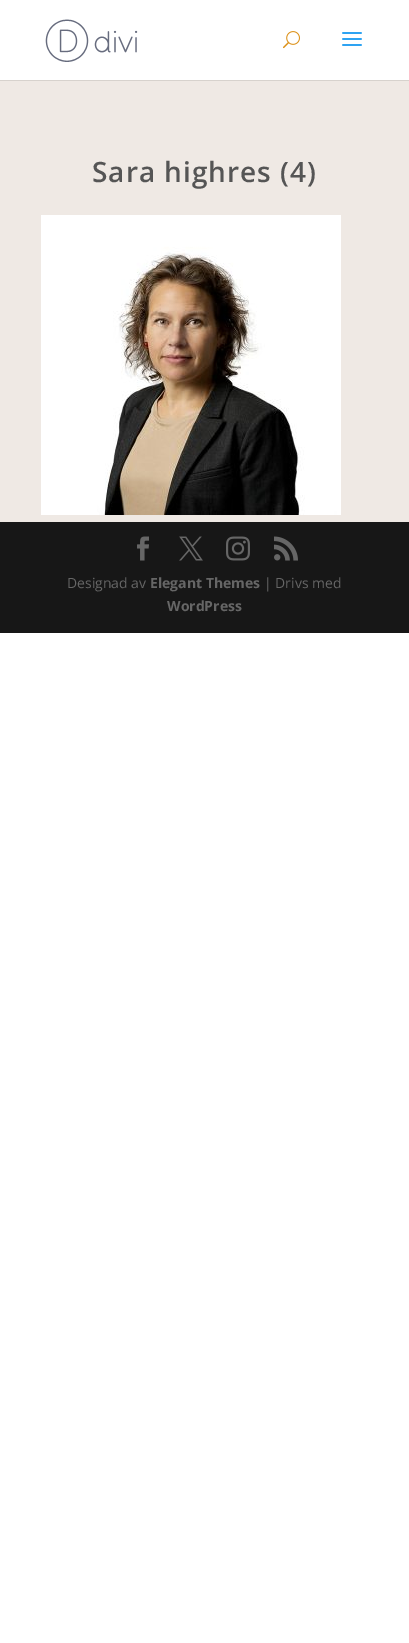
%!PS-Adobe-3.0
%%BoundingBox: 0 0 409 1643
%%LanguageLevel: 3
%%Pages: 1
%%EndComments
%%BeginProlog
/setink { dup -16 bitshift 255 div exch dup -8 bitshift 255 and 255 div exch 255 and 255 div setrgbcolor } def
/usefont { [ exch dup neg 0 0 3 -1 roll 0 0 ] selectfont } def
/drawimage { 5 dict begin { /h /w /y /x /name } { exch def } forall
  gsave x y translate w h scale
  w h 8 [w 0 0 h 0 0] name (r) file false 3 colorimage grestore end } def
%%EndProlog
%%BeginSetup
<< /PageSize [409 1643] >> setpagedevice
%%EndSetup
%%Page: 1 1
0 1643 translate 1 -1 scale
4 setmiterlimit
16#FFFFFF setink
0 0 409 1643 rectfill
16#D7D2CD setink
0 80 409 1 rectfill
(img1.raw) 45 19 93 43 drawimage
(img2.raw) 283 31 17 18 drawimage
(img3.raw) 342 32 20 14 drawimage
16#EFE9E4 setink
0 81 409 441 rectfill
/OpenSans-SemiBold 28 usefont
16#555555 setink
92 182 moveto 1 0 (Sara highres \(4\)) ashow
(img4.raw) 41 215 300 300 drawimage
16#171717 setink
0 522 409 111 rectfill
(img5.raw) 137 536 12 25 drawimage
(img6.raw) 179 536 24 25 drawimage
(img7.raw) 226 536 24 25 drawimage
(img8.raw) 274 536 24 25 drawimage
/OpenSans-Regular 14 usefont
16#666666 setink
67 588 moveto (Designad av) show
/OpenSans-Bold 14 usefont
150 588 moveto (Elegant Themes) show
/OpenSans-Regular 14 usefont
264 588 moveto (| Drivs med) show
/OpenSans-Bold 14 usefont
167 611 moveto (WordPress) show
showpage
%%EOF
